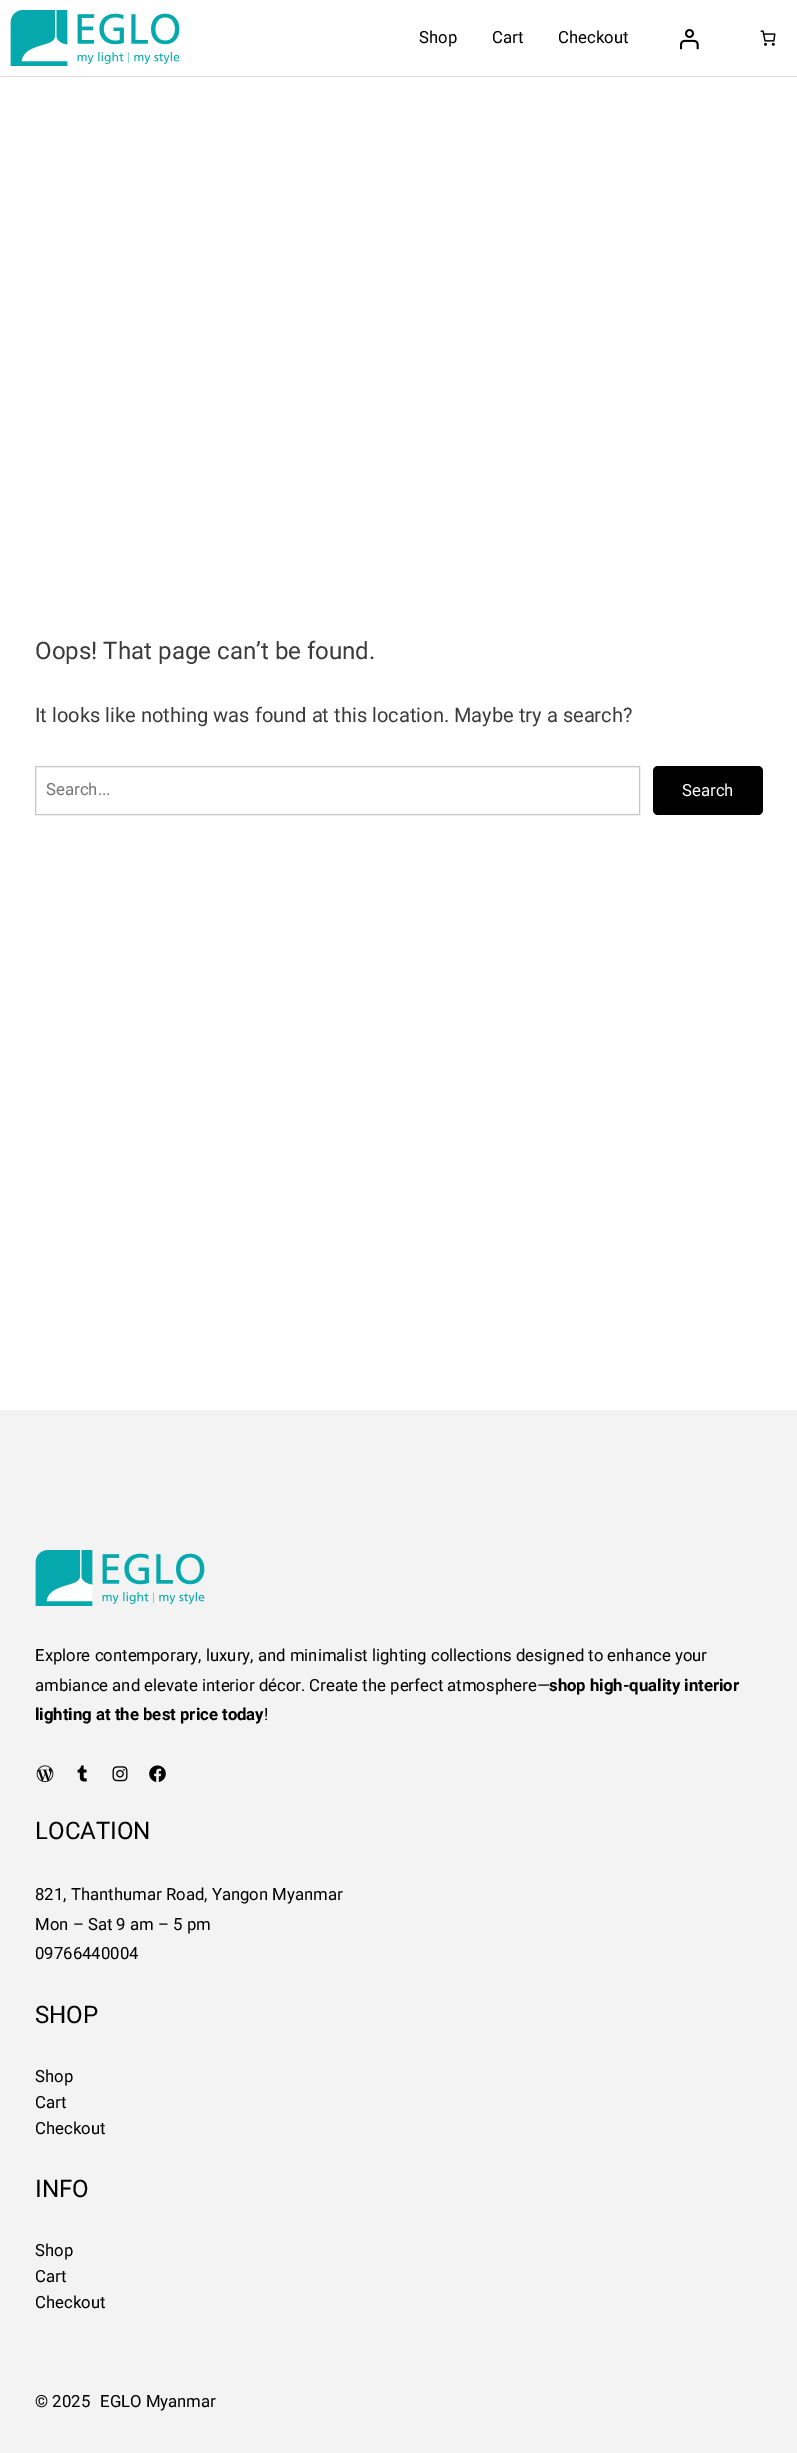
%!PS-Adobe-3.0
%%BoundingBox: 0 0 797 2453
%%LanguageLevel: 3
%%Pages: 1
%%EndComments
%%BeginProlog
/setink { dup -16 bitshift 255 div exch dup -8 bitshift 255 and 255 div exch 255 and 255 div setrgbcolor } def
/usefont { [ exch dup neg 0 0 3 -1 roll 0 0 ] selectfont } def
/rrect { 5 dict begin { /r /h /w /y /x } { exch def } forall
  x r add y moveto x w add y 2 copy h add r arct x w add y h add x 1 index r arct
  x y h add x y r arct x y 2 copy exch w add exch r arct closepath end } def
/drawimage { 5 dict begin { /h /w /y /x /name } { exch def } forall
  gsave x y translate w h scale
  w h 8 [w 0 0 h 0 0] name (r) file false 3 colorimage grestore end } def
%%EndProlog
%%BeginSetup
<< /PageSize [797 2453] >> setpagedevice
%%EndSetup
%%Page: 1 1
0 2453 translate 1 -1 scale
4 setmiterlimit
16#FFFFFF setink
0 0 797 2453 rectfill
16#DCDCDC setink
0 76 797 1 rectfill
(img1.raw) 10 10 170 56 drawimage
/Roboto-Regular 16.75 usefont
16#000000 setink
[
    [(Shop) 419 43]
    [(Cart) 492 43]
    [(Checkout) 558 43]
] { aload pop moveto show } forall
(img2.raw) 680 29 19 21 drawimage
(img3.raw) 760 30 16 16 drawimage
/Roboto-Regular 24.1 usefont
16#3B3B3B setink
35 659 moveto (Oops! That page can’t be found.) show
/Roboto-Regular 20.1 usefont
35 722 moveto (It looks like nothing was found at this location. Maybe try a search?) show
16#C6C6C6 setink
35.5 766.5 604 48 rectstroke
/Roboto-Regular 16.75 usefont
16#757575 setink
46 795 moveto (Search...) show
16#000000 setink
653 766 110 49 5 rrect fill
16#FFFFFF setink
682 796 moveto (Search) show
16#F3F3F3 setink
0 1410 797 1043 rectfill
(img4.raw) 35 1550 170 56 drawimage
16#000000 setink
35 1661 moveto (Explore contemporary, luxury, and minimalist lighting collections designed to enhance your) show
35 1691 moveto (ambiance and elevate interior décor. Create the perfect atmosphere—) show
/Roboto-Bold 16.75 usefont
549 1691 moveto (shop high-quality interior) show
35 1720 moveto (lighting at the best price today) show
/Roboto-Regular 16.75 usefont
264 1720 moveto (!) show
(img5.raw) 36 1765 18 18 drawimage
(img6.raw) 77 1765 10 17 drawimage
(img7.raw) 112 1766 16 16 drawimage
(img8.raw) 149 1765 17 17 drawimage
/Roboto-Regular 24.1 usefont
35 1839 moveto (LOCATION) show
/Roboto-Regular 16.75 usefont
[
    [(821, Thanthumar Road, Yangon Myanmar) 35 1900]
    [(Mon – Sat 9 am – 5 pm) 35 1930]
    [(09766440004) 35 1959]
] { aload pop moveto show } forall
/Roboto-Regular 24.1 usefont
35 2023 moveto (SHOP) show
/Roboto-Regular 16.75 usefont
[
    [(Shop) 35 2082]
    [(Cart) 35 2108]
    [(Checkout) 35 2134]
] { aload pop moveto show } forall
/Roboto-Regular 24.1 usefont
35 2197 moveto (INFO) show
/Roboto-Regular 16.75 usefont
[
    [(Shop) 35 2256]
    [(Cart) 35 2282]
    [(Checkout) 35 2308]
    [(© 2025) 35 2407]
    [(EGLO Myanmar) 100 2407]
] { aload pop moveto show } forall
showpage
%%EOF
